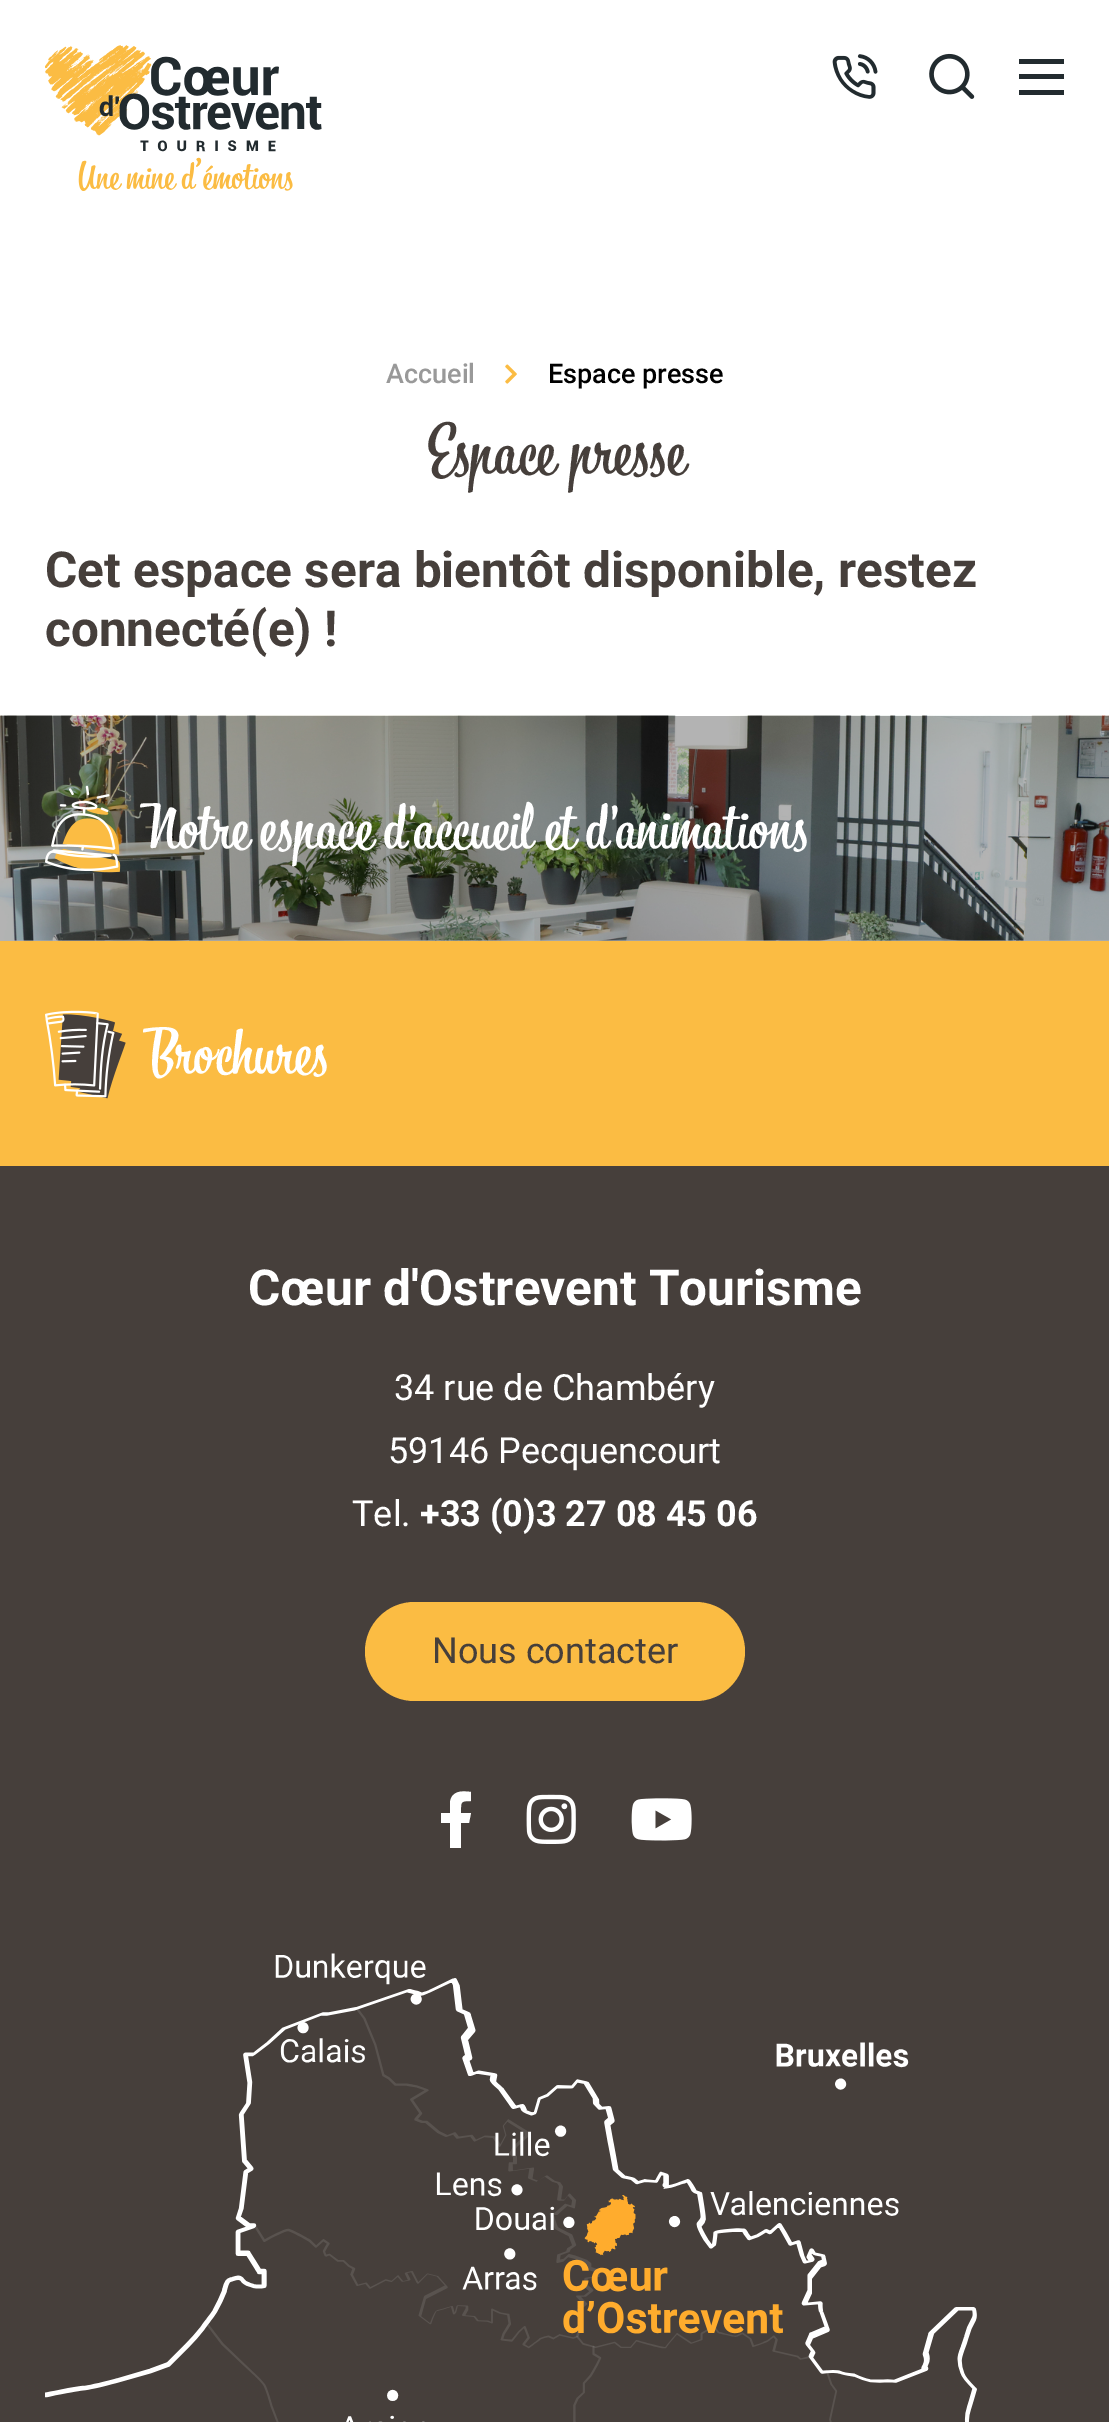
%!PS-Adobe-3.0
%%BoundingBox: 0 0 1109 2422
%%LanguageLevel: 3
%%Pages: 1
%%EndComments
%%BeginProlog
/setink { dup -16 bitshift 255 div exch dup -8 bitshift 255 and 255 div exch 255 and 255 div setrgbcolor } def
/usefont { [ exch dup neg 0 0 3 -1 roll 0 0 ] selectfont } def
/rrect { 5 dict begin { /r /h /w /y /x } { exch def } forall
  x r add y moveto x w add y 2 copy h add r arct x w add y h add x 1 index r arct
  x y h add x y r arct x y 2 copy exch w add exch r arct closepath end } def
/drawimage { 5 dict begin { /h /w /y /x /name } { exch def } forall
  gsave x y translate w h scale
  w h 8 [w 0 0 h 0 0] name (r) file false 3 colorimage grestore end } def
%%EndProlog
%%BeginSetup
<< /PageSize [1109 2422] >> setpagedevice
%%EndSetup
%%Page: 1 1
0 2422 translate 1 -1 scale
4 setmiterlimit
16#FFFFFF setink
0 0 1109 2422 rectfill
16#B3B3B3 setink
0 940 1109 1 rectfill
(img1.raw) 45 45 277 146 drawimage
(img2.raw) 832 54 46 45 drawimage
(img3.raw) 929 53 46 46 drawimage
[
    [1019 74 45 5 16#222B2F]
    [1019 59 45 5 16#222B2F]
    [1019 90 45 5 16#222B2F]
] { aload pop setink rectfill } forall
/Roboto-Medium 27 usefont
16#999999 setink
386 383 moveto (Accueil) show
(img4.raw) 505 364 12 20 drawimage
16#000000 setink
548 383 moveto (Espace presse) show
/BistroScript-Regular 67.5 usefont
16#463F3B setink
427 473 moveto 2 0 32 (Espace presse) widthshow
/Roboto-Bold 49.5 usefont
45 587 moveto (Cet espace sera bientôt disponible, restez) show
45 646 moveto (connecté\(e\) !) show
(img5.raw) 0 715 1109 226 drawimage
(img6.raw) 45 785 76 88 drawimage
/BistroScript-Regular 63 usefont
16#FFFFFF setink
140 848 moveto (Notre espace d'accueil et d'animations) show
16#FBBC43 setink
0 941 1109 225 rectfill
(img7.raw) 45 1010 81 89 drawimage
16#FFFFFF setink
143 1073 moveto (Brochures) show
16#463F3B setink
0 1166 1109 1256 rectfill
/Roboto-Bold 49.5 usefont
16#FFFFFF setink
248 1305 moveto (Cœur d'Ostrevent Tourisme) show
/Roboto-Regular 36 usefont
[
    [(34 rue de Chambéry) 394 1400]
    [(59146 Pecquencourt) 388 1463]
    [(Tel.) 352 1526]
] { aload pop moveto show } forall
/Roboto-Bold 36 usefont
420 1526 moveto (+33 \(0\)3 27 08 45 06) show
16#FBBC43 setink
365 1602 380 99 49.5 rrect fill
/Roboto-Regular 36 usefont
16#463F3B setink
432 1663 moveto (Nous contacter) show
16#FFFFFF setink
469 1823 moveto 461 1823 lineto 461 1848 lineto 450 1848 lineto 450 1823 lineto 441 1823 lineto 441 1813 lineto 450 1813 lineto 450 1802 lineto 452 1790 463 1791 471 1792 curveto 471 1801 lineto 460 1801 461 1802 461 1813 curveto 471 1813 lineto closepath fill
(img8.raw) 526 1794 50 50 drawimage
(img9.raw) 631 1798 61 43 drawimage
(img10.raw) 45 1953 932 469 drawimage
showpage
%%EOF
